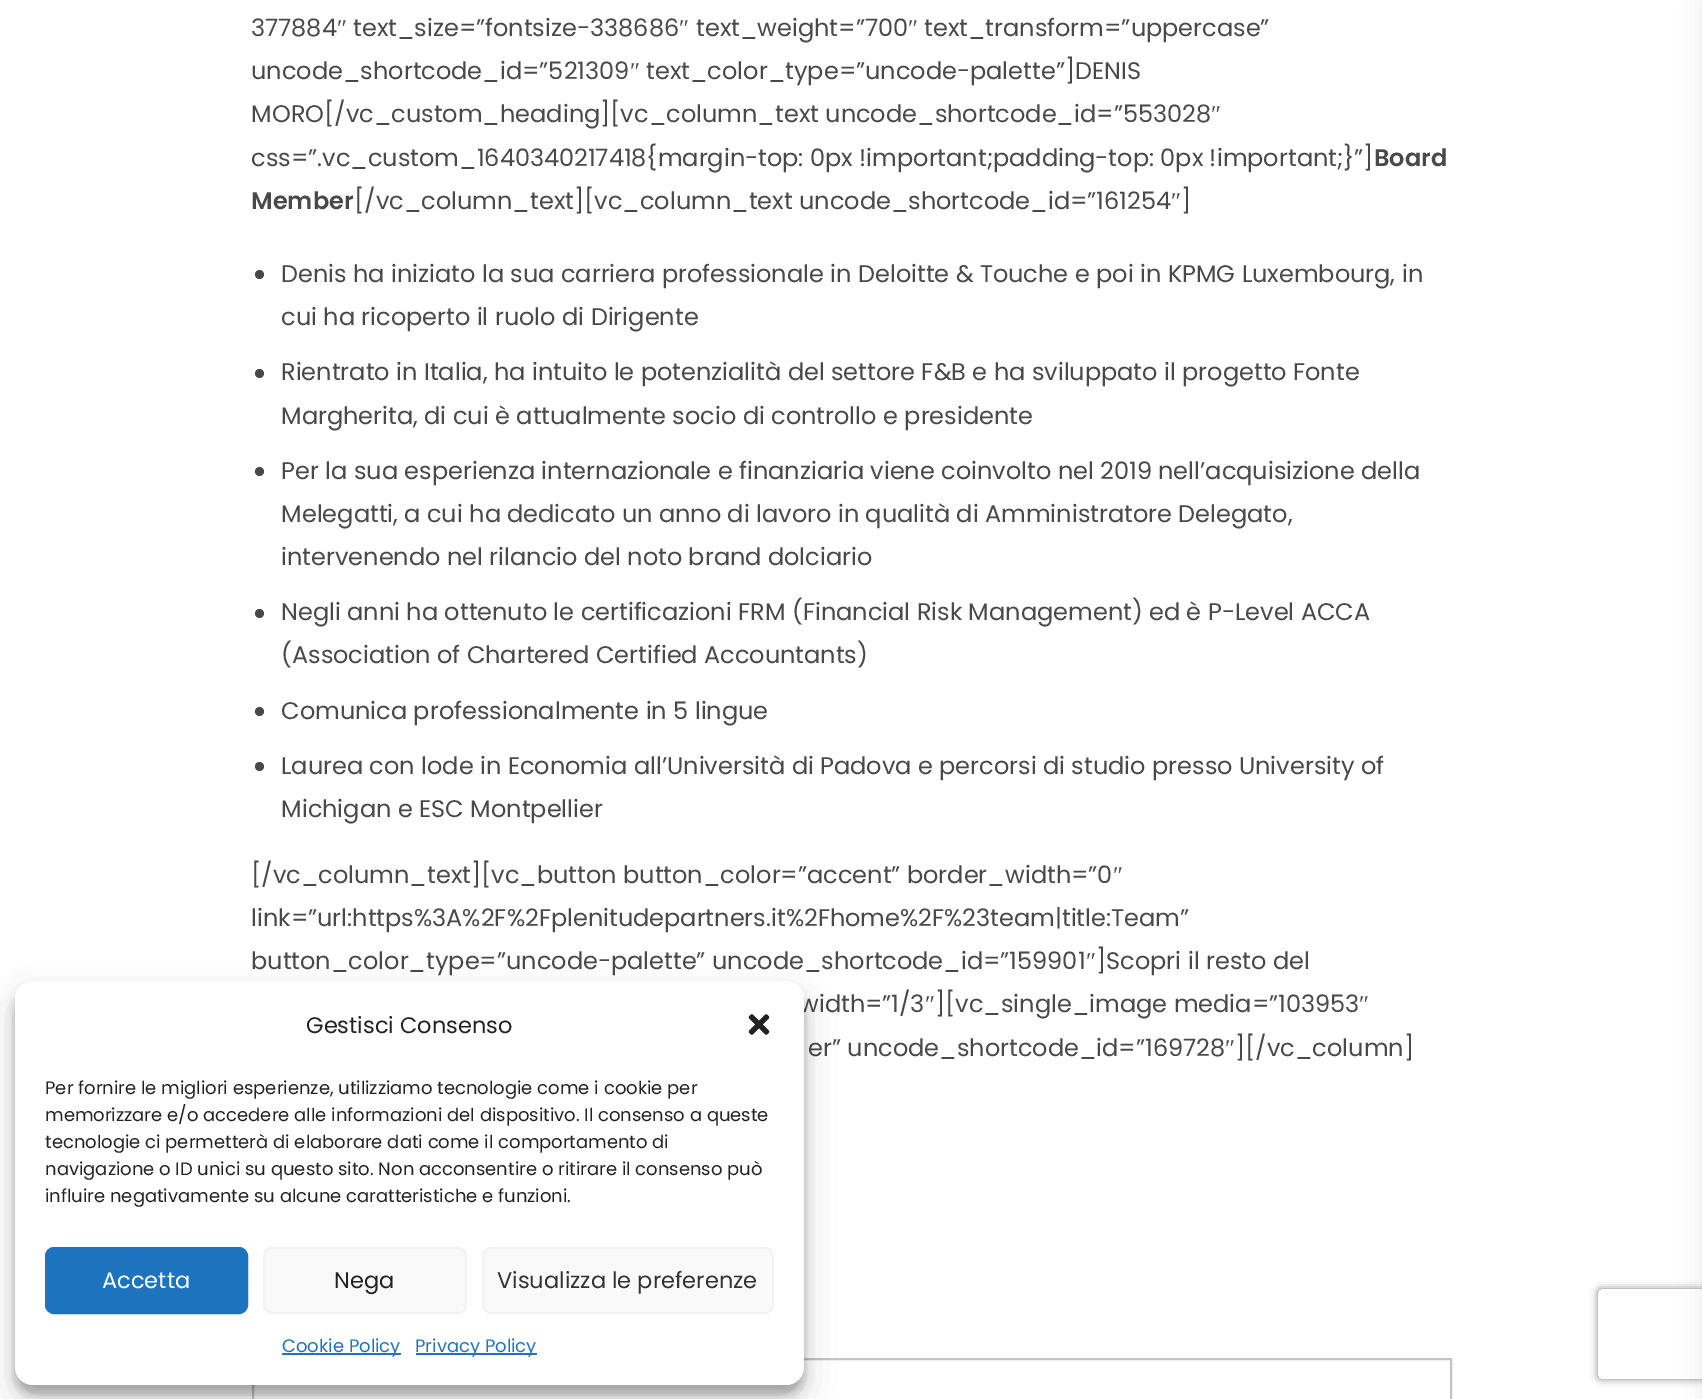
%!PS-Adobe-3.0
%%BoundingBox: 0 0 1702 1399
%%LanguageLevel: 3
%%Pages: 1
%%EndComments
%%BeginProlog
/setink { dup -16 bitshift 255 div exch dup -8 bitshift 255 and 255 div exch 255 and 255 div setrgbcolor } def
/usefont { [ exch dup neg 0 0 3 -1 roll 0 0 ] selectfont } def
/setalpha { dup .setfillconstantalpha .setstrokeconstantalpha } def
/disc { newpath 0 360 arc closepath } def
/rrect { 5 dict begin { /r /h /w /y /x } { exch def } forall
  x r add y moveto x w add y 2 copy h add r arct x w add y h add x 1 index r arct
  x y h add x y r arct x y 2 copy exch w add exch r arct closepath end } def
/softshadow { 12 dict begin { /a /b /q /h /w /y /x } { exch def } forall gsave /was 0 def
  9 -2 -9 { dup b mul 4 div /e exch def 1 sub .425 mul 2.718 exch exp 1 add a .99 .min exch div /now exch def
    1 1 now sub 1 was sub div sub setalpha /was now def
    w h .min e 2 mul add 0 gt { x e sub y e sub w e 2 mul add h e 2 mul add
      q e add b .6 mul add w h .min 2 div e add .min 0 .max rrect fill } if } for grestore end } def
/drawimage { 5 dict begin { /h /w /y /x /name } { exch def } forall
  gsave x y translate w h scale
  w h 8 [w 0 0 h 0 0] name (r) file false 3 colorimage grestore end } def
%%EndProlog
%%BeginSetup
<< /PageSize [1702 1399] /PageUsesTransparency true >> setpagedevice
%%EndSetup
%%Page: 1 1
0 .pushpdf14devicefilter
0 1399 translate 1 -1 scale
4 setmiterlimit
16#FFFFFF setink
0 0 1702 1399 rectfill
/Poppins-Regular 24 usefont
16#494949 setink
251 36 moveto (377884) show
/LiberationSerif-Regular 24 usefont
337 36 moveto (″) show
/Poppins-Regular 24 usefont
353 36 moveto (text_size=”fontsize-338686) show
/LiberationSerif-Regular 24 usefont
679 36 moveto (″) show
/Poppins-Regular 24 usefont
696 36 moveto (text_weight=”700) show
/LiberationSerif-Regular 24 usefont
908 36 moveto (″) show
/Poppins-Regular 24 usefont
924 36 moveto (text_transform=”uppercase”) show
251 79 moveto (uncode_shortcode_id=”521309) show
/LiberationSerif-Regular 24 usefont
630 79 moveto (″) show
/Poppins-Regular 24 usefont
646 79 moveto (text_color_type=”uncode-palette”]DENIS) show
251 122 moveto (MORO[/vc_custom_heading][vc_column_text uncode_shortcode_id=”553028) show
/LiberationSerif-Regular 24 usefont
1211 122 moveto (″) show
/Poppins-Regular 24 usefont
251 166 moveto (css=”.vc_custom_1640340217418{margin-top: 0px !important;padding-top: 0px !important;}”]) show
/Poppins-SemiBold 24 usefont
1374 166 moveto (Board) show
251 209 moveto (Member) show
/Poppins-Regular 24 usefont
354 209 moveto ([/vc_column_text][vc_column_text uncode_shortcode_id=”161254) show
/LiberationSerif-Regular 24 usefont
1171 209 moveto (″) show
/Poppins-Regular 24 usefont
1181 209 moveto (]) show
259.5 274.5 4.5 disc fill
281 282 moveto (Denis ha iniziato la sua carriera professionale in Deloitte & Touche e poi in KPMG Luxembourg, in) show
281 325 moveto (cui ha ricoperto il ruolo di Dirigente) show
259.5 373.5 4.5 disc fill
281 380 moveto (Rientrato in Italia, ha intuito le potenzialità del settore F&B e ha sviluppato il progetto Fonte) show
281 424 moveto (Margherita, di cui è attualmente socio di controllo e presidente) show
259.5 471.5 4.5 disc fill
[
    [(Per la sua esperienza internazionale e finanziaria viene coinvolto nel 2019 nell’acquisizione della) 281 479]
    [(Melegatti, a cui ha dedicato un anno di lavoro in qualità di Amministratore Delegato,) 281 522]
    [(intervenendo nel rilancio del noto brand dolciario) 281 565]
] { aload pop moveto show } forall
259.5 613.5 4.5 disc fill
281 620 moveto (Negli anni ha ottenuto le certificazioni FRM \(Financial Risk Management\) ed è P-Level ACCA) show
281 663 moveto (\(Association of Chartered Certified Accountants\)) show
259.5 711.5 4.5 disc fill
281 719 moveto (Comunica professionalmente in 5 lingue) show
259.5 766.5 4.5 disc fill
[
    [(Laurea con lode in Economia all’Università di Padova e percorsi di studio presso University of) 281 774]
    [(Michigan e ESC Montpellier) 281 817]
    [([/vc_column_text][vc_button button_color=”accent” border_width=”0) 251 883]
] { aload pop moveto show } forall
/LiberationSerif-Regular 24 usefont
1113 883 moveto (″) show
/Poppins-Regular 24 usefont
251 926 moveto (link=”url:https%3A%2F%2Fplenitudepartners.it%2Fhome%2F%23team|title:Team”) show
251 969 moveto (button_color_type=”uncode-palette” uncode_shortcode_id=”159901) show
/LiberationSerif-Regular 24 usefont
1086 969 moveto (″) show
/Poppins-Regular 24 usefont
1096 969 moveto (]Scopri il resto del) show
799 1012 moveto (width=”1/3) show
/LiberationSerif-Regular 24 usefont
925 1012 moveto (″) show
/Poppins-Regular 24 usefont
935 1012 moveto (][vc_single_image media=”103953) show
/LiberationSerif-Regular 24 usefont
1359 1012 moveto (″) show
/Poppins-Regular 24 usefont
808 1056 moveto (er” uncode_shortcode_id=”169728) show
/LiberationSerif-Regular 24 usefont
1225 1056 moveto (″) show
/Poppins-Regular 24 usefont
1235 1056 moveto (][/vc_column]) show
16#C4C4C4 setink
2 setlinewidth
253 1359 1198 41 rectstroke
16#000000 setink
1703 0 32 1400 0 11 0.09 softshadow
15 990 789 404 18 4.5 0.23 softshadow
15 996 789 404 18 15 0.19 softshadow
16#FFFFFF setink
15 981 789 404 18 rrect fill
/Poppins-Regular 22.5 usefont
16#222222 setink
306 1033 moveto (Gestisci Consenso) show
(img1.raw) 748 1014 22 21 drawimage
/Poppins-Regular 18 usefont
[
    [(Per fornire le migliori esperienze, utilizziamo tecnologie come i cookie per) 45 1094]
    [(memorizzare e/o accedere alle informazioni del dispositivo. Il consenso a queste) 45 1121]
    [(tecnologie ci permetterà di elaborare dati come il comportamento di) 45 1148]
    [(navigazione o ID unici su questo sito. Non acconsentire o ritirare il consenso può) 45 1175]
    [(influire negativamente su alcune caratteristiche e funzioni.) 45 1202]
] { aload pop moveto show } forall
16#1E73BE setink
46 1248 201 65 8 rrect gsave fill grestore
stroke
/Poppins-Regular 22.5 usefont
16#FFFFFF setink
102 1288 moveto (Accetta) show
16#F9F9F9 setink
264 1248 202 65 8 rrect gsave fill grestore
16#F2F2F2 setink
stroke
16#222222 setink
334 1288 moveto (Nega) show
16#F9F9F9 setink
483 1248 290 65 8 rrect gsave fill grestore
16#F2F2F2 setink
stroke
16#333333 setink
497 1288 moveto (Visualizza le preferenze) show
16#1E73BE setink
282 1353 119 2 rectfill
/Poppins-Regular 18 usefont
282 1352 moveto (Cookie Policy) show
416 1353 121 2 rectfill
415 1352 moveto (Privacy Policy) show
gsave
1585 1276 moveto 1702 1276 lineto 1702 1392 lineto 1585 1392 lineto closepath 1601 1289 moveto 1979 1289 lineto 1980.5 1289 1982 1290.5 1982 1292 curveto 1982 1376 lineto 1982 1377.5 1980.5 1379 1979 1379 curveto 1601 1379 lineto 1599.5 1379 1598 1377.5 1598 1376 curveto 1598 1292 lineto 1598 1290.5 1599.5 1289 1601 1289 curveto closepath eoclip newpath
16#808080 setink
1598 1289 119 90 3 4 1 softshadow
grestore
.poppdf14devicefilter showpage
%%EOF
